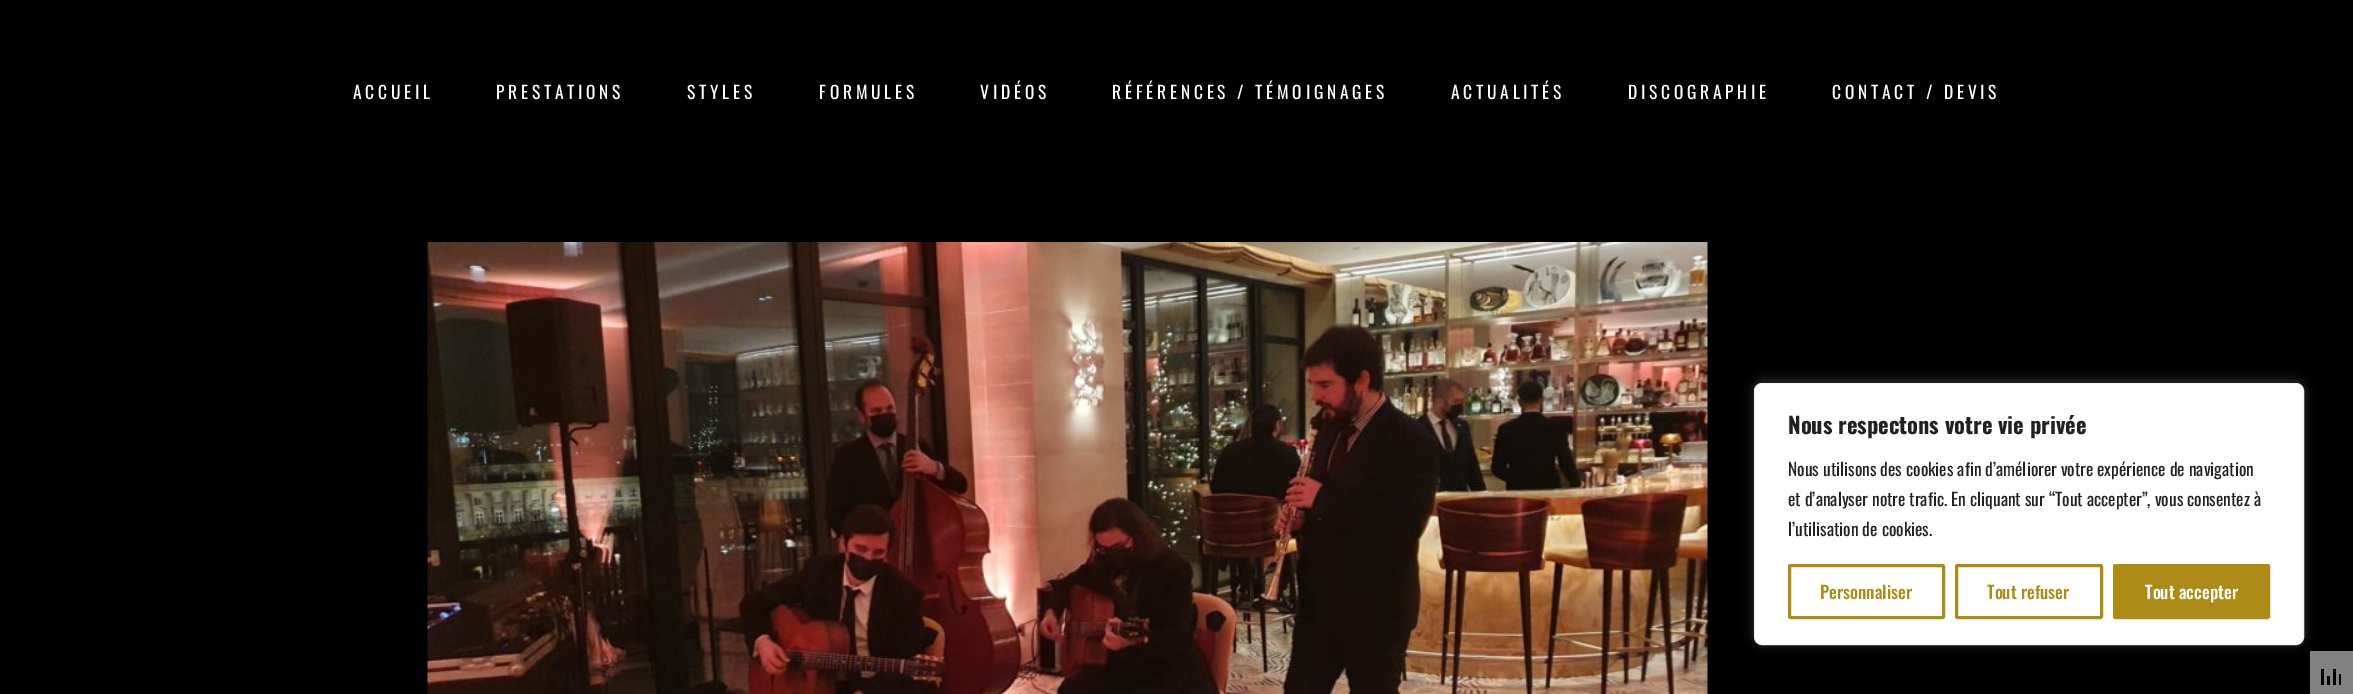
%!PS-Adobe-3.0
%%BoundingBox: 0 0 2353 694
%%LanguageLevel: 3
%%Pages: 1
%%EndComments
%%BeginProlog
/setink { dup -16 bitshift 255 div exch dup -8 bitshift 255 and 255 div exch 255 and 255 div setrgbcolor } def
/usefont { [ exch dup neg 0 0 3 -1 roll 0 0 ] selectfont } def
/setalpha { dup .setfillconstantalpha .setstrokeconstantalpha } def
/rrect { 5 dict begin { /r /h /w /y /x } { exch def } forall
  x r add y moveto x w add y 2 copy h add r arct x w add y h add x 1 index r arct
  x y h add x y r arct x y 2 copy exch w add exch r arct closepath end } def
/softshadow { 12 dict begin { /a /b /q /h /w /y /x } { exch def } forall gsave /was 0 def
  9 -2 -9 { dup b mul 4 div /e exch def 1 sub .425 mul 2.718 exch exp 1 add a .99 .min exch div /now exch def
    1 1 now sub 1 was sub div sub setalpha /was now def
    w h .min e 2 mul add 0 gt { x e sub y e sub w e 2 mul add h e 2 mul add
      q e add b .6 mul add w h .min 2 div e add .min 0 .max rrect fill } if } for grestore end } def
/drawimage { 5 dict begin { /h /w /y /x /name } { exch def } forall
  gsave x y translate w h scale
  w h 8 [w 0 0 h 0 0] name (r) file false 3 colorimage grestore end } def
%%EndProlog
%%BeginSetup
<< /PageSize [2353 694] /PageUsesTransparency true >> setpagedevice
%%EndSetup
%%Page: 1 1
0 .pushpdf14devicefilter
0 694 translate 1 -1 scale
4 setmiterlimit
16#000000 setink
0 0 2353 694 rectfill
/Oswald-Regular 17.5 usefont
16#FFFFFF setink
353 99 moveto 3.75 0 (ACCUEIL) ashow
496 99 moveto 3.75 0 (PRESTATIONS) ashow
687 99 moveto 3.75 0 (STYLES) ashow
819 99 moveto 3.75 0 (FORMULES) ashow
980 99 moveto 3.75 0 (VIDÉOS) ashow
1112 99 moveto 3.75 0 (RÉFÉRENCES / TÉMOIGNAGES) ashow
1451 99 moveto 3.75 0 (ACTUALITÉS) ashow
1628 99 moveto 3.75 0 (DISCOGRAPHIE) ashow
1832 99 moveto 3.75 0 (CONTACT / DEVIS) ashow
(img1.raw) 427 242 1281 452 drawimage
16#818181 setink
2310 651 43 43 rectfill
16#ACABAB setink
1754 381 550 263 8 6 0.3 softshadow
16#FFFFFF setink
1754.5 383.5 549 261 7.5 rrect gsave fill grestore
16#F4F4F4 setink
stroke
/Oswald-Bold 22.5 usefont
16#212121 setink
1788 434 moveto (Nous respectons votre vie privée) show
/Oswald-Regular 17.5 usefont
[
    [(Nous utilisons des cookies afin d’améliorer votre expérience de navigation) 1788 476]
    [(et d’analyser notre trafic. En cliquant sur “Tout accepter”, vous consentez à) 1788 506]
    [(l’utilisation de cookies.) 1788 536]
] { aload pop moveto show } forall
16#AC8B18 setink
3 setlinewidth
1789.5 565.5 154 52 1 rrect stroke
/Oswald-Medium 17.5 usefont
1820 599 moveto (Personnaliser) show
1956.5 565.5 145 52 1 rrect stroke
1987 599 moveto (Tout refuser) show
2114.5 565.5 154 52 1 rrect gsave fill grestore
stroke
16#FFFFFF setink
2145 599 moveto (Tout accepter) show
[
    [2339 674 2 11 16#000000]
    [2333 669 3 16 16#000000]
    [2327 676 3 9 16#000000]
    [2321 669 3 16 16#000000]
] { aload pop setink rectfill } forall
.poppdf14devicefilter showpage
%%EOF
